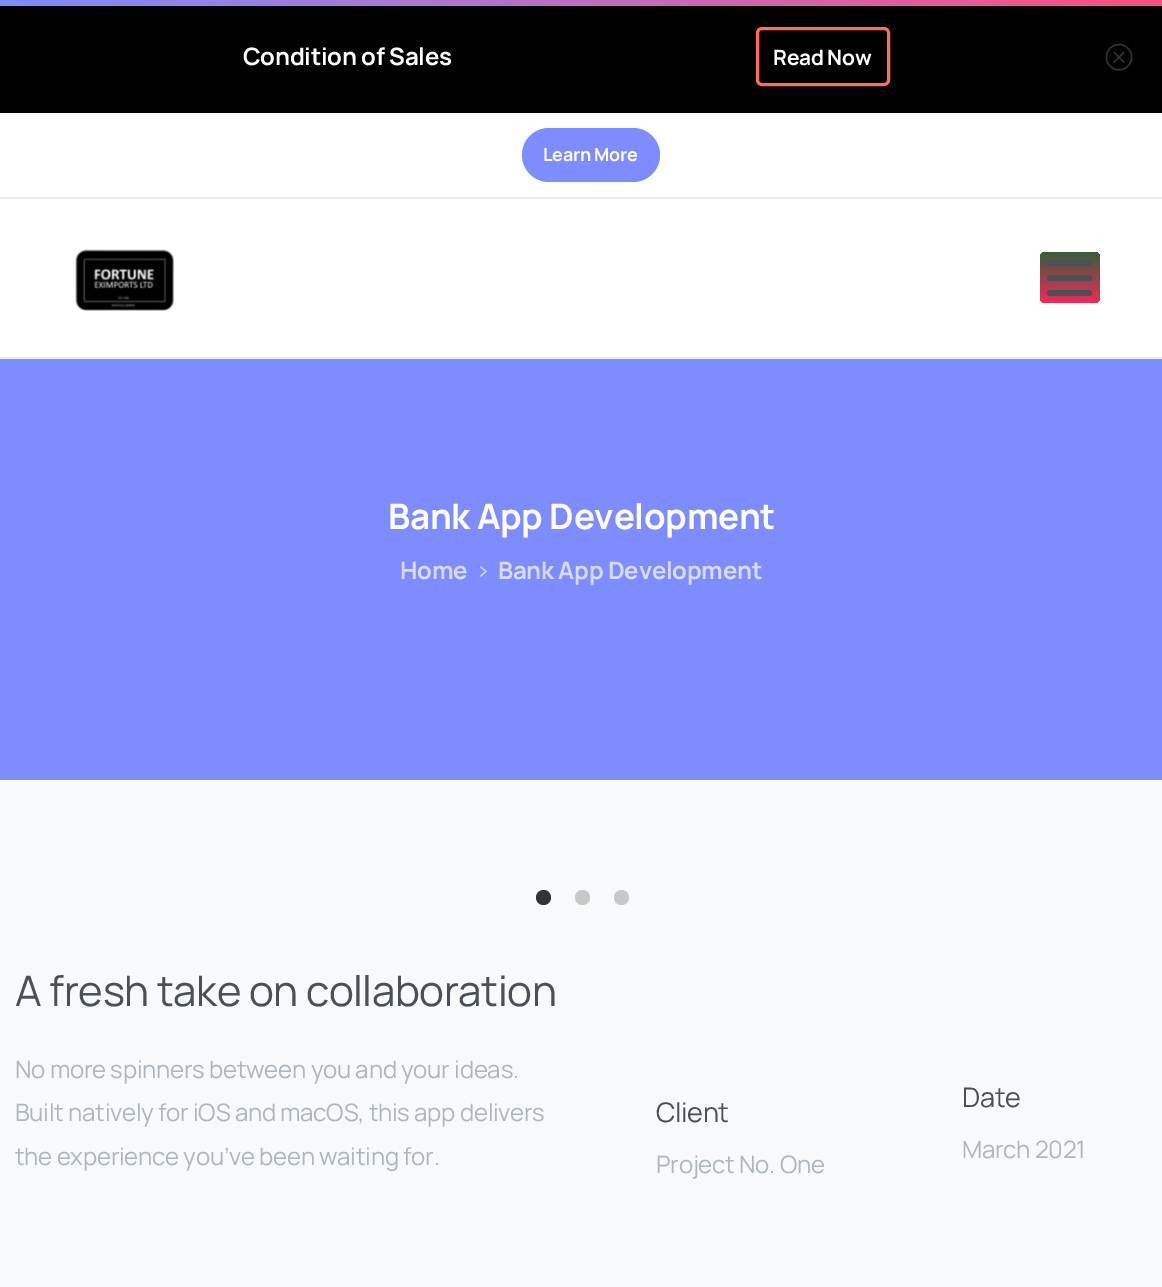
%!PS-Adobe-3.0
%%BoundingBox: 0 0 1162 1287
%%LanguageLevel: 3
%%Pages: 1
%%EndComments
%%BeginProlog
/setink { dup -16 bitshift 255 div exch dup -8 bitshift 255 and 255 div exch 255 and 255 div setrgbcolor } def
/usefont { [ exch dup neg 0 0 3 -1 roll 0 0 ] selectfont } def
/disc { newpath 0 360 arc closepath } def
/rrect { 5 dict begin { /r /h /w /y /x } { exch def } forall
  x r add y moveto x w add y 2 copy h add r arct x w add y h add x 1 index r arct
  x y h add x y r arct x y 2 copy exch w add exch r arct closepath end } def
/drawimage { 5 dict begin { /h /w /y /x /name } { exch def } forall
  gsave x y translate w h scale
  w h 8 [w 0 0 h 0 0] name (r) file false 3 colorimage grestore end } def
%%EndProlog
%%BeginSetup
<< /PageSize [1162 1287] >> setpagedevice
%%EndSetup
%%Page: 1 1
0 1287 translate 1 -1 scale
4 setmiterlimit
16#7D8DFF setink
0 0 1162 1287 rectfill
gsave 22 0 moveto 1162 0 lineto 1162 6 lineto 22 6 lineto closepath clip newpath
<< /ShadingType 2 /ColorSpace /DeviceRGB /Coords [0 3 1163 3] /Extend [true true] /Function << /FunctionType 2 /Domain [0 1] /C0 [0.49 0.553 1] /C1 [1 0.31 0.506] /N 1 >> >> shfill grestore
16#000000 setink
0 6 1162 107 rectfill
/Manrope-Bold 24 usefont
16#FFFFFF setink
243 65 moveto -0.25 0 (Condition of Sales) ashow
16#FF6C5F setink
3 setlinewidth
757.5 28.5 131 56 4.5 rrect stroke
/Manrope-Bold 21 usefont
16#FFFFFF setink
773 65 moveto -0.25 0 (Read Now) ashow
(img1.raw) 1105 43 28 28 drawimage
0 113 1162 84 rectfill
16#7D8DFF setink
522 128 138 54 27 rrect fill
/Manrope-Bold 18 usefont
16#FFFFFF setink
543 161 moveto -0.25 0 (Learn More) ashow
16#E9ECEF setink
0 197 1162 2 rectfill
16#FFFFFF setink
0 199 1162 158 rectfill
(img2.raw) 75 249 100 62 drawimage
gsave 1040 252 60 51 6 rrect clip newpath
<< /ShadingType 2 /ColorSpace /DeviceRGB /Coords [1070 252 1070 303] /Extend [true true] /Function << /FunctionType 2 /Domain [0 1] /C0 [0.208 0.369 0.231] /C1 [0.949 0.161 0.357] /N 1 >> >> shfill grestore
16#495057 setink
1047 260 45 6 3 rrect fill
1047 275 45 6 3 rrect fill
1047 290 45 6 3 rrect fill
16#E9ECEF setink
0 357 1162 2 rectfill
/Manrope-Bold 35.1 usefont
16#FFFFFF setink
388 529 moveto -0.3 0 (Bank App Development) ashow
/Manrope-Bold 24 usefont
16#D8DDFF setink
400 579 moveto -0.25 0 (Home) ashow
(img3.raw) 480 566 7 11 drawimage
498 579 moveto -0.25 0 (Bank App Development) ashow
16#F8F9FA setink
0 780 1162 507 rectfill
16#333333 setink
543.5 897.5 7.5 disc fill
16#C7C8C8 setink
582.5 897.5 7.5 disc fill
621.5 897.5 7.5 disc fill
/Manrope-Regular 42 usefont
16#495057 setink
15 1006 moveto -0.4 0 (A fresh take on collaboration) ashow
/Manrope-Regular 24 usefont
16#ADB5BD setink
15 1078 moveto -0.25 0 (No more spinners between you and your ideas.) ashow
15 1121 moveto -0.25 0 (Built natively for iOS and macOS, this app delivers) ashow
15 1165 moveto -0.25 0 (the experience you’ve been waiting for.) ashow
/Manrope-Regular 27 usefont
16#495057 setink
656 1122 moveto -0.25 0 (Client) ashow
/Manrope-Regular 24 usefont
16#ADB5BD setink
656 1173 moveto -0.25 0 (Project No. One) ashow
/Manrope-Regular 27 usefont
16#495057 setink
962 1107 moveto -0.25 0 (Date) ashow
/Manrope-Regular 24 usefont
16#ADB5BD setink
962 1158 moveto -0.25 0 (March 2021) ashow
showpage
%%EOF
